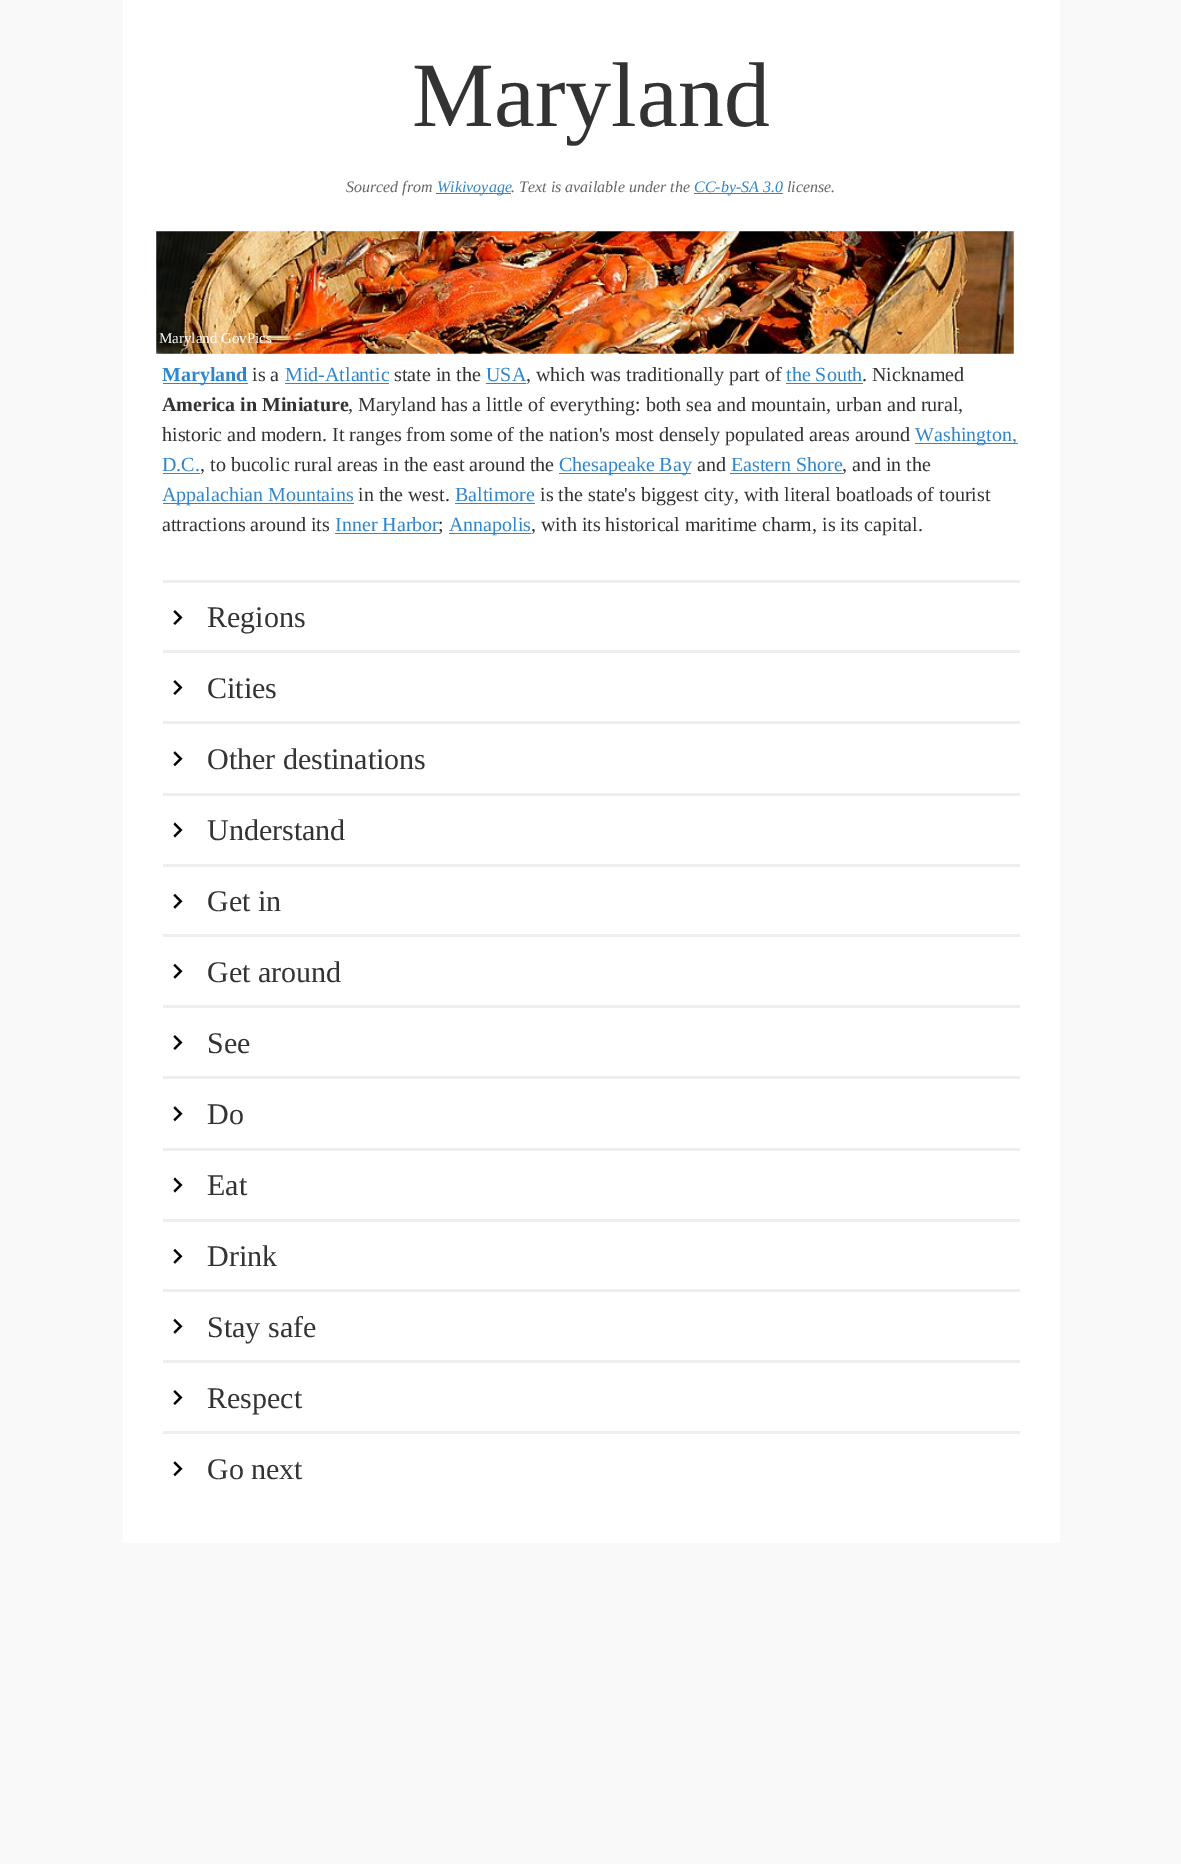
%!PS-Adobe-3.0
%%BoundingBox: 0 0 1181 1864
%%LanguageLevel: 3
%%Pages: 1
%%EndComments
%%BeginProlog
/setink { dup -16 bitshift 255 div exch dup -8 bitshift 255 and 255 div exch 255 and 255 div setrgbcolor } def
/usefont { [ exch dup neg 0 0 3 -1 roll 0 0 ] selectfont } def
/drawimage { 5 dict begin { /h /w /y /x /name } { exch def } forall
  gsave x y translate w h scale
  w h 8 [w 0 0 h 0 0] name (r) file false 3 colorimage grestore end } def
%%EndProlog
%%BeginSetup
<< /PageSize [1181 1864] >> setpagedevice
%%EndSetup
%%Page: 1 1
0 1864 translate 1 -1 scale
4 setmiterlimit
16#F9F9F9 setink
0 0 1181 1864 rectfill
16#FFFFFF setink
123 0 937 1543 rectfill
/LiberationSerif-Regular 92 usefont
16#333333 setink
412 126 moveto (Maryland) show
/LiberationSerif-Italic 16 usefont
16#666666 setink
346 192 moveto (Sourced from) show
16#3086CC setink
436 193 75 1 rectfill
437 192 moveto (Wikivoyage) show
16#666666 setink
511 192 moveto (. Text is available under the) show
16#3086CC setink
694 193 89 1 rectfill
694 192 moveto (CC-by-SA 3.0) show
16#666666 setink
787 192 moveto (license.) show
(img1.raw) 156 231 858 123 drawimage
/LiberationSerif-Regular 15 usefont
16#FFFFFF setink
159 343 moveto (Maryland GovPics) show
16#3086CC setink
163 383 85 1 rectfill
/LiberationSerif-Bold 20 usefont
162 381 moveto (Maryland) show
/LiberationSerif-Regular 20 usefont
16#333333 setink
252 381 moveto (is a) show
16#3086CC setink
285 381 moveto (Mid-Atlantic) show
285 383 104 1 rectfill
16#333333 setink
394 381 moveto (state in the) show
16#3086CC setink
486 381 moveto (USA) show
486 383 40 1 rectfill
16#333333 setink
526 381 moveto (, which was traditionally part of) show
16#3086CC setink
786 381 moveto (the South) show
786 383 77 1 rectfill
16#333333 setink
862 381 moveto (. Nicknamed) show
/LiberationSerif-Bold 20 usefont
162 411 moveto (America in Miniature) show
/LiberationSerif-Regular 20 usefont
348 411 moveto (, Maryland has a little of everything: both sea and mountain, urban and rural,) show
162 441 moveto (historic and modern. It ranges from some of the nation's most densely populated areas around) show
16#3086CC setink
915 443 103 1 rectfill
915 441 moveto (Washington,) show
162 471 moveto (D.C.) show
163 473 37 1 rectfill
16#333333 setink
200 471 moveto (, to bucolic rural areas in the east around the) show
16#3086CC setink
559 473 132 1 rectfill
559 471 moveto (Chesapeake Bay) show
16#333333 setink
697 471 moveto (and) show
16#3086CC setink
731 471 moveto (Eastern Shore) show
730 473 113 1 rectfill
16#333333 setink
842 471 moveto (, and in the) show
16#3086CC setink
163 503 191 1 rectfill
162 501 moveto (Appalachian Mountains) show
16#333333 setink
358 501 moveto (in the west.) show
16#3086CC setink
455 501 moveto (Baltimore) show
455 503 80 1 rectfill
16#333333 setink
540 501 moveto (is the state's biggest city, with literal boatloads of tourist) show
162 531 moveto (attractions around its) show
16#3086CC setink
335 531 moveto (Inner Harbor) show
335 533 104 1 rectfill
16#333333 setink
438 531 moveto (;) show
16#3086CC setink
449 533 82 1 rectfill
449 531 moveto (Annapolis) show
16#333333 setink
531 531 moveto (, with its historical maritime charm, is its capital.) show
16#EEEEEE setink
163 580 857 3 rectfill
(img2.raw) 173 610 10 15 drawimage
/LiberationSerif-Regular 30 usefont
16#333333 setink
207 627 moveto (Regions) show
16#EEEEEE setink
163 650 857 3 rectfill
(img2.raw) 173 680 10 15 drawimage
16#333333 setink
207 698 moveto (Cities) show
16#EEEEEE setink
163 721 857 3 rectfill
(img3.raw) 173 751 10 16 drawimage
16#333333 setink
207 769 moveto (Other destinations) show
16#EEEEEE setink
163 793 857 3 rectfill
(img4.raw) 173 822 10 16 drawimage
16#333333 setink
207 840 moveto (Understand) show
16#EEEEEE setink
163 864 857 3 rectfill
(img5.raw) 173 893 10 16 drawimage
16#333333 setink
207 911 moveto (Get in) show
16#EEEEEE setink
163 934 857 3 rectfill
(img5.raw) 173 963 10 16 drawimage
16#333333 setink
207 982 moveto (Get around) show
16#EEEEEE setink
163 1005 857 3 rectfill
(img2.raw) 173 1035 10 15 drawimage
16#333333 setink
207 1053 moveto (See) show
16#EEEEEE setink
163 1076 857 3 rectfill
(img3.raw) 173 1106 10 16 drawimage
16#333333 setink
207 1124 moveto (Do) show
16#EEEEEE setink
163 1148 857 3 rectfill
(img6.raw) 173 1177 10 16 drawimage
16#333333 setink
207 1195 moveto (Eat) show
16#EEEEEE setink
163 1219 857 3 rectfill
(img5.raw) 173 1248 10 16 drawimage
16#333333 setink
207 1266 moveto (Drink) show
16#EEEEEE setink
163 1289 857 3 rectfill
(img5.raw) 173 1318 10 16 drawimage
16#333333 setink
207 1337 moveto (Stay safe) show
16#EEEEEE setink
163 1360 857 3 rectfill
(img2.raw) 173 1390 10 15 drawimage
16#333333 setink
207 1408 moveto (Respect) show
16#EEEEEE setink
163 1431 857 3 rectfill
(img3.raw) 173 1461 10 16 drawimage
16#333333 setink
207 1479 moveto (Go next) show
showpage
%%EOF
